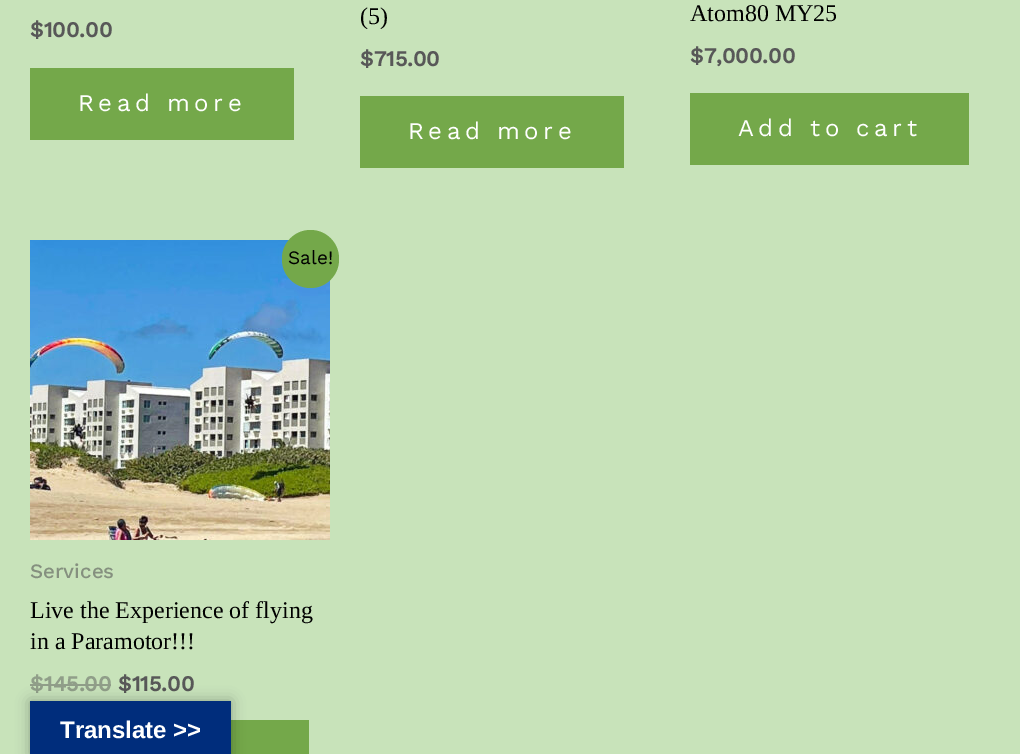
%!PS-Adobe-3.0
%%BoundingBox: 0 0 1020 754
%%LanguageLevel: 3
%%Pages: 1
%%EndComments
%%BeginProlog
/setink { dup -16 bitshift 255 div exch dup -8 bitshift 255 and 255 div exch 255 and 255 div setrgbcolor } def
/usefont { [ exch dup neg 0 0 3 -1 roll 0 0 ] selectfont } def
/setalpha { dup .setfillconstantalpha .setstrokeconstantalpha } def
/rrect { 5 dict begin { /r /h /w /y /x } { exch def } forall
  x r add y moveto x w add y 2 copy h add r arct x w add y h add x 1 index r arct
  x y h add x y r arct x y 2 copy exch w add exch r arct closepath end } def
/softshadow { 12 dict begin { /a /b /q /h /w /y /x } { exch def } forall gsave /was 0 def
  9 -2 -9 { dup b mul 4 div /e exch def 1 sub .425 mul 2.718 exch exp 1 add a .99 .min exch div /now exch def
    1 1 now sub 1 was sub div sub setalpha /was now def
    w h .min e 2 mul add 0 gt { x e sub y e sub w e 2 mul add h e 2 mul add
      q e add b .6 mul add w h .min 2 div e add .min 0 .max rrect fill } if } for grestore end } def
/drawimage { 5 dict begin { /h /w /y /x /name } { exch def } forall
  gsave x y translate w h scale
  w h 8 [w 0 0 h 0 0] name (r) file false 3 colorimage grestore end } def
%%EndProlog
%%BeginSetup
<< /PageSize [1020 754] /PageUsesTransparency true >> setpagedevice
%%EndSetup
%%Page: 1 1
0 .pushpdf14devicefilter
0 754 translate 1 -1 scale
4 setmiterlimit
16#C8E3BA setink
0 0 1020 754 rectfill
/WorkSans-Bold 21.5 usefont
16#585858 setink
30 37 moveto ($100.00) show
16#74A84A setink
30 68 264 72 rectfill
/WorkSans-Regular 24 usefont
16#FFFFFF setink
78 111 moveto 4.5 0 (Read more) ashow
/LiberationSerif-Regular 24 usefont
16#000000 setink
360 24 moveto (\(5\)) show
/WorkSans-Bold 21.5 usefont
16#585858 setink
360 66 moveto ($715.00) show
16#74A84A setink
360 96 264 72 rectfill
/WorkSans-Regular 24 usefont
16#FFFFFF setink
408 139 moveto 4.5 0 (Read more) ashow
/LiberationSerif-Regular 24 usefont
16#000000 setink
690 21 moveto (Atom80 MY25) show
/WorkSans-Bold 21.5 usefont
16#585858 setink
690 63 moveto ($7,000.00) show
16#74A84A setink
690 93 279 72 rectfill
/WorkSans-Regular 24 usefont
16#FFFFFF setink
738 136 moveto 4.5 0 (Add to cart) ashow
(img1.raw) 30 240 300 300 drawimage
16#74A84A setink
282 230 57 58 28.5 rrect fill
/WorkSans-Regular 19 usefont
16#000000 setink
288 264 moveto (Sale!) show
/WorkSans-Medium 20.5 usefont
16#85907F setink
30 578 moveto (Services) show
/LiberationSerif-Regular 24 usefont
16#000000 setink
30 618 moveto (Live the Experience of flying) show
30 649 moveto (in a Paramotor!!!) show
/WorkSans-Bold 21.5 usefont
16#909E89 setink
30 691 moveto ($) show
30 684 14 2 rectfill
44 691 moveto (145.00) show
44 684 67 2 rectfill
16#585858 setink
118 691 moveto ($115.00) show
16#74A84A setink
231 720 78 34 rectfill
16#000000 setink
30 701 201 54 0 7 0.3 softshadow
16#002D7C setink
30 701 201 53 rectfill
/LiberationSans-Bold 24 usefont
16#FFFFFF setink
60 738 moveto (Translate >>) show
.poppdf14devicefilter showpage
%%EOF
